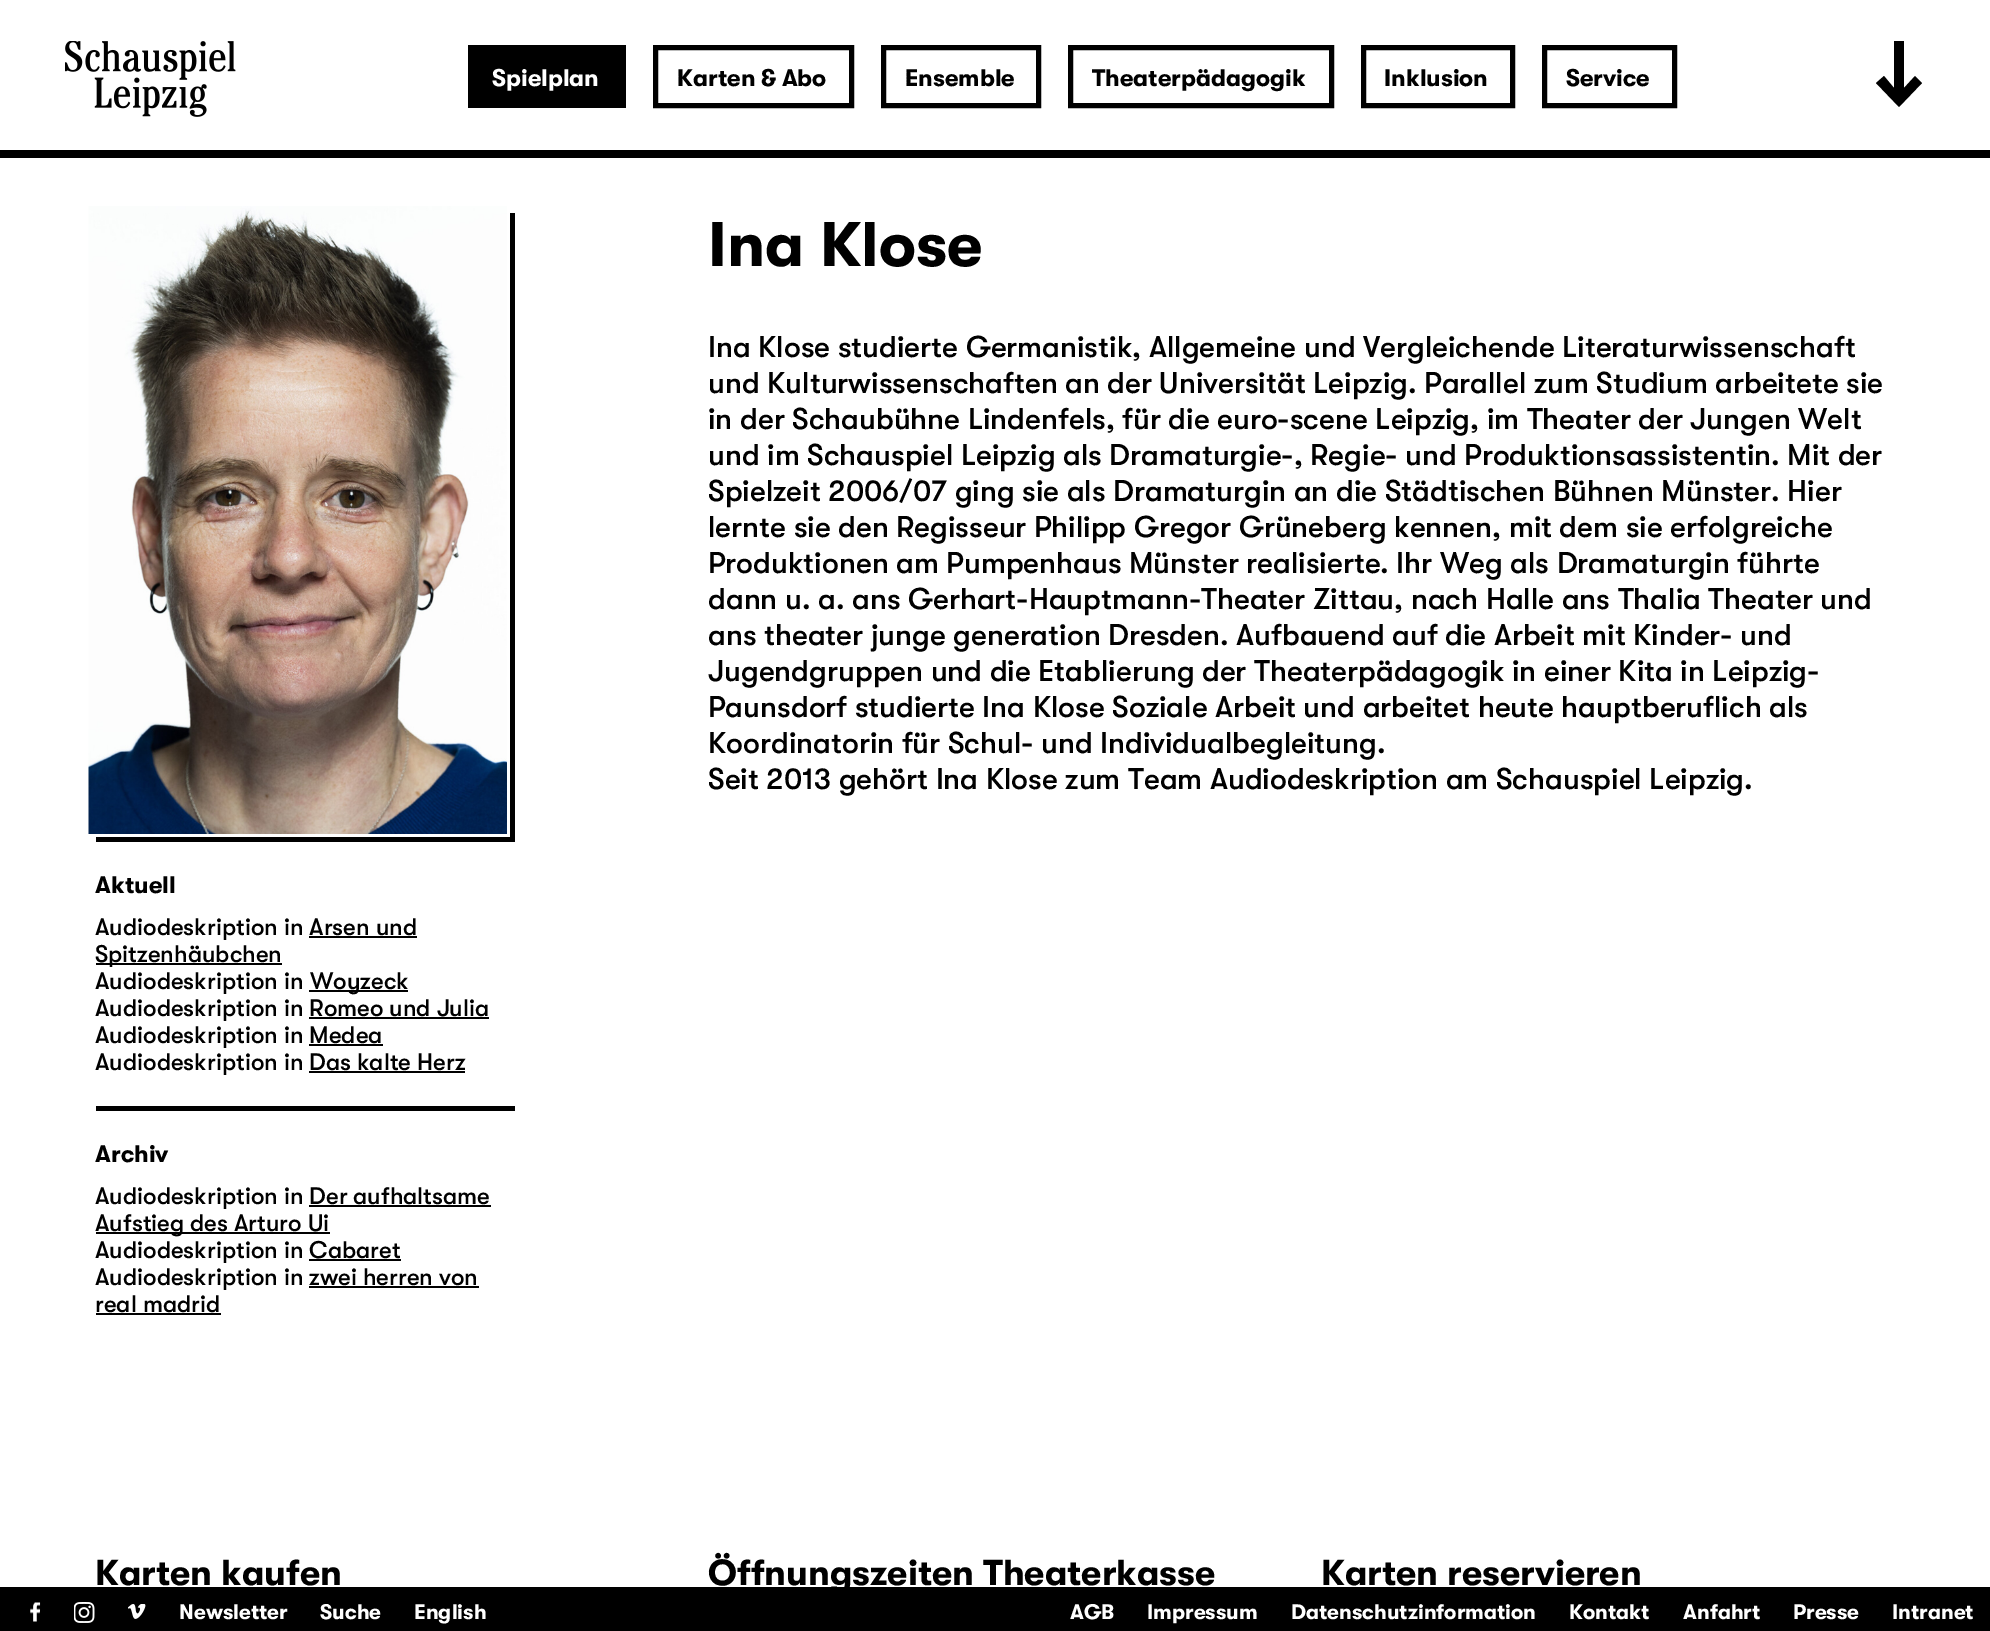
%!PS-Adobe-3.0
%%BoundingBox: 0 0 1990 1631
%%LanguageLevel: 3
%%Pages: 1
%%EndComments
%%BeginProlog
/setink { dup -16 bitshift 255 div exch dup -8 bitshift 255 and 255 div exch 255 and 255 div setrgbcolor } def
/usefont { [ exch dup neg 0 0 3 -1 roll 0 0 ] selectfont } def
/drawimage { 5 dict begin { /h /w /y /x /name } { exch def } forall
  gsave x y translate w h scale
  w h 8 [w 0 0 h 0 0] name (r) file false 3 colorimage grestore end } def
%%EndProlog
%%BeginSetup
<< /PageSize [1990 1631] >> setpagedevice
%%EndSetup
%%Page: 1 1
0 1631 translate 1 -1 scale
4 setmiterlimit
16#FFFFFF setink
0 0 1990 1631 rectfill
16#000000 setink
0 150 1990 8 rectfill
(img1.raw) 65 41 171 76 drawimage
468 45 158 63 rectfill
/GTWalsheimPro-Bold 24 usefont
16#FFFFFF setink
492 86 moveto (Spielplan) show
16#000000 setink
5 setlinewidth
655.5 47.5 196 58 rectstroke
677 86 moveto (Karten & Abo) show
883.5 47.5 155 58 rectstroke
905 86 moveto (Ensemble) show
1070.5 47.5 261 58 rectstroke
1092 86 moveto (Theaterpädagogik) show
1363.5 47.5 149 58 rectstroke
1384 86 moveto (Inklusion) show
1544.5 47.5 130 58 rectstroke
1566 86 moveto (Service) show
1894 41 moveto 1894 88 lineto 1884 76 lineto 1876 83 lineto 1899 107 lineto 1922 83 lineto 1915 76 lineto 1904 88 lineto 1904 41 lineto closepath fill
/GTWalsheimPro-Bold 63 usefont
708 266 moveto (Ina Klose) show
/GTWalsheimPro-Medium 30 usefont
[
    [(Ina Klose studierte Germanistik, Allgemeine und Vergleichende Literaturwissenschaft) 708 357]
    [(und Kulturwissenschaften an der Universität Leipzig. Parallel zum Studium arbeitete sie) 708 393]
    [(in der Schaubühne Lindenfels, für die euro-scene Leipzig, im Theater der Jungen Welt) 708 429]
    [(und im Schauspiel Leipzig als Dramaturgie-, Regie- und Produktionsassistentin. Mit der) 708 465]
    [(Spielzeit 2006/07 ging sie als Dramaturgin an die Städtischen Bühnen Münster. Hier) 708 501]
    [(lernte sie den Regisseur Philipp Gregor Grüneberg kennen, mit dem sie erfolgreiche) 708 537]
    [(Produktionen am Pumpenhaus Münster realisierte. Ihr Weg als Dramaturgin führte) 708 573]
    [(dann u. a. ans Gerhart-Hauptmann-Theater Zittau, nach Halle ans Thalia Theater und) 708 609]
    [(ans theater junge generation Dresden. Aufbauend auf die Arbeit mit Kinder- und) 708 645]
    [(Jugendgruppen und die Etablierung der Theaterpädagogik in einer Kita in Leipzig-) 708 681]
    [(Paunsdorf studierte Ina Klose Soziale Arbeit und arbeitet heute hauptberuflich als) 708 717]
    [(Koordinatorin für Schul- und Individualbegleitung.) 708 753]
    [(Seit 2013 gehört Ina Klose zum Team Audiodeskription am Schauspiel Leipzig.) 708 789]
] { aload pop moveto show } forall
(img2.raw) 88 206 419 628 drawimage
[
    [96 837 419 5 16#000000]
    [510 213 5 629 16#000000]
    [96 1106 419 5 16#000000]
] { aload pop setink rectfill } forall
/GTWalsheimPro-Bold 24 usefont
95 893 moveto (Aktuell) show
/GTWalsheimPro-Medium 24 usefont
95 935 moveto (Audiodeskription in Arsen und) show
96 963 186 2 rectfill
95 962 moveto (Spitzenhäubchen) show
309 936 108 2 rectfill
95 989 moveto (Audiodeskription in) show
309 990 99 2 rectfill
310 989 moveto (Woyzeck) show
95 1016 moveto (Audiodeskription in Romeo und Julia) show
309 1017 180 2 rectfill
95 1043 moveto (Audiodeskription in Medea) show
309 1044 74 2 rectfill
95 1070 moveto (Audiodeskription in Das kalte Herz) show
309 1071 156 2 rectfill
/GTWalsheimPro-Bold 24 usefont
95 1162 moveto (Archiv) show
/GTWalsheimPro-Medium 24 usefont
95 1204 moveto (Audiodeskription in Der aufhaltsame) show
96 1232 234 2 rectfill
95 1231 moveto (Aufstieg des Arturo Ui) show
309 1205 182 2 rectfill
95 1258 moveto (Audiodeskription in Cabaret) show
309 1259 92 2 rectfill
95 1285 moveto (Audiodeskription in zwei herren von) show
95 1312 moveto (real madrid) show
309 1286 170 2 rectfill
96 1313 125 2 rectfill
/GTWalsheimPro-Bold 36 usefont
[
    [(Karten kaufen) 95 1585]
    [(Öffnungszeiten Theaterkasse) 708 1585]
    [(Karten reservieren) 1321 1585]
] { aload pop moveto show } forall
0 1587 1990 44 rectfill
(img3.raw) 30 1602 11 20 drawimage
(img4.raw) 74 1602 21 21 drawimage
(img5.raw) 128 1604 18 15 drawimage
/GTWalsheimPro-Bold 21 usefont
16#FFFFFF setink
[
    [(Newsletter) 179 1619]
    [(Suche) 320 1619]
    [(English) 414 1619]
    [(AGB) 1070 1619]
    [(Impressum) 1147 1619]
    [(Datenschutzinformation) 1291 1619]
    [(Kontakt) 1569 1619]
    [(Anfahrt) 1683 1619]
    [(Presse) 1793 1619]
    [(Intranet) 1892 1619]
] { aload pop moveto show } forall
showpage
%%EOF
